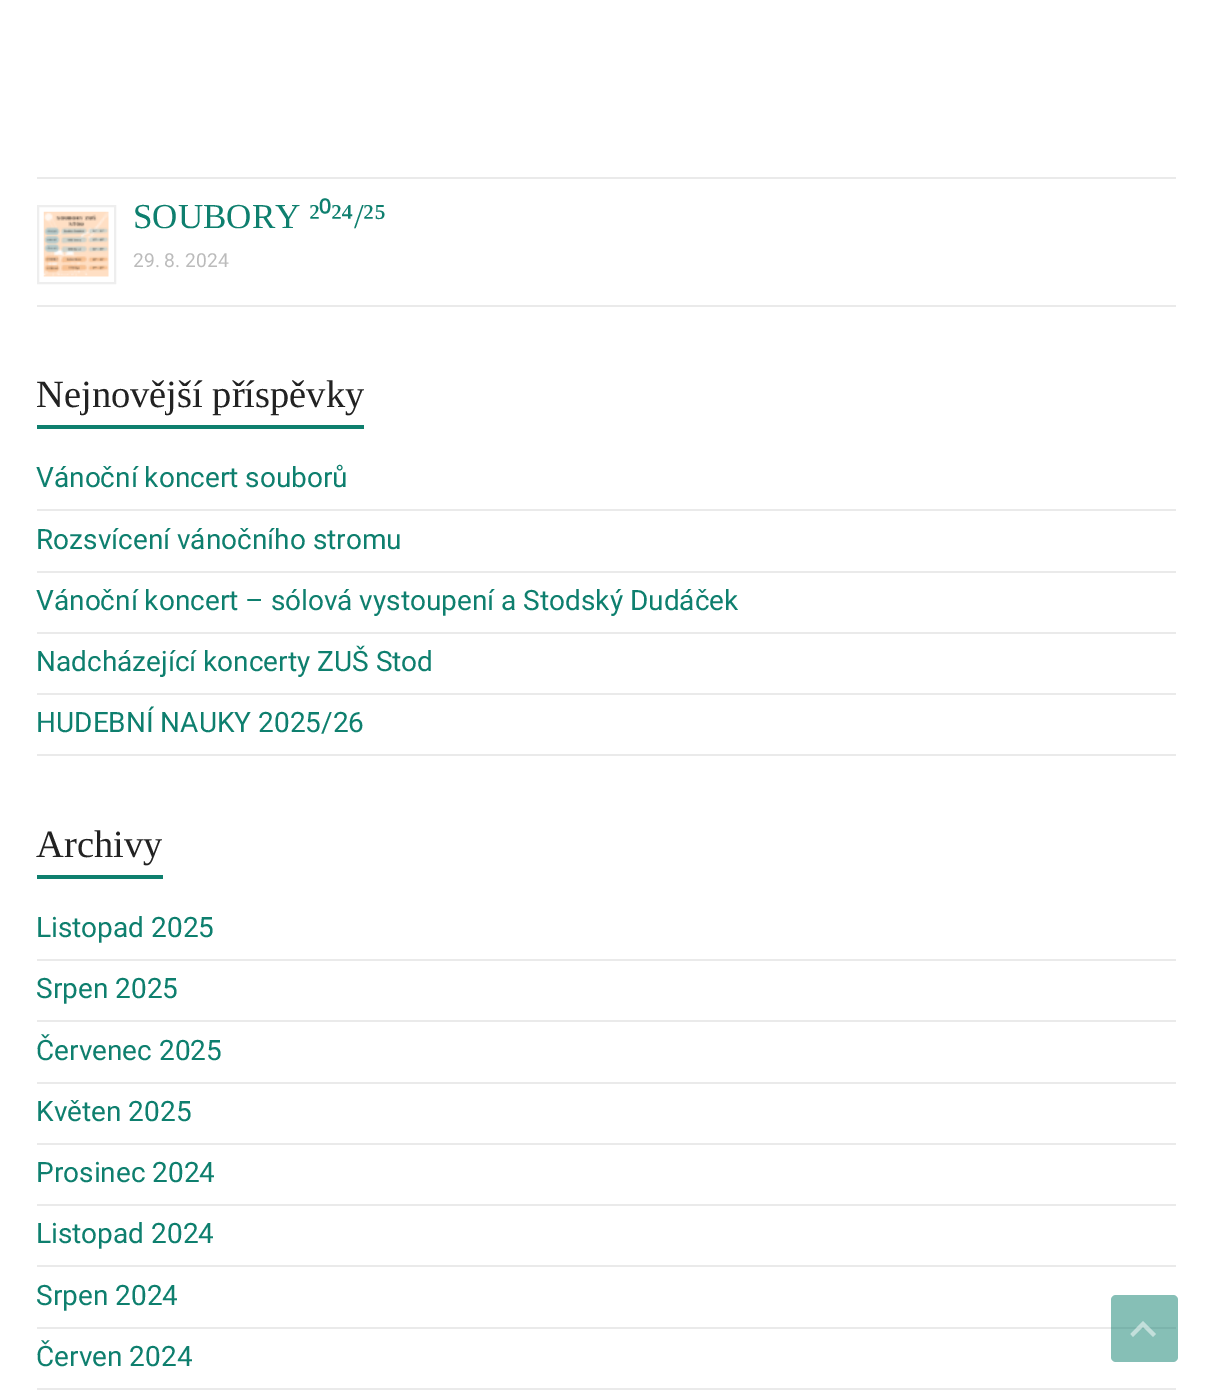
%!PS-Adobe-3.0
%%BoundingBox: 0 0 1212 1395
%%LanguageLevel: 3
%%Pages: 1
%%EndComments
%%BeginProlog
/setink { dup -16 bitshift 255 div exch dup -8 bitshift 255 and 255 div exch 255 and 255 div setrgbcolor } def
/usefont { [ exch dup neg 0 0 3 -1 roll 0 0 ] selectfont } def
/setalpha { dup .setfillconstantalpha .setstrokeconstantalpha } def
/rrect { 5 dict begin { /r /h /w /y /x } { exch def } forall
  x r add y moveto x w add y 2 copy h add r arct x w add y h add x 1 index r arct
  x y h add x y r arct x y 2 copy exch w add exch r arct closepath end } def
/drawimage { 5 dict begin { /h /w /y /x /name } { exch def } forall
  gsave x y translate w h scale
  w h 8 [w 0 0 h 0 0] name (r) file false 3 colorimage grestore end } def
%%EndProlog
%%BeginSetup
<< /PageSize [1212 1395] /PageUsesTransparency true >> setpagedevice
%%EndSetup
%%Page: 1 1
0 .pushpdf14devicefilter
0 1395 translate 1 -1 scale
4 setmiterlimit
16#FFFFFF setink
0 0 1212 1395 rectfill
16#EAEAEA setink
37 177 1139 2 rectfill
37 305 1139 2 rectfill
16#EEEEEE setink
2 setlinewidth
38 206 77 77 rectstroke
(img1.raw) 43 211 66 66 drawimage
/LiberationSerif-Regular 35 usefont
16#0E7F6E setink
133 228 moveto (SOUBORY ²) show
/NotoSans-Regular 35 usefont
319 228 moveto (⁰) show
/LiberationSerif-Regular 35 usefont
331 228 moveto (²⁴/²⁵) show
/Roboto-Regular 19.25 usefont
16#BBBBBB setink
133 267 moveto (29. 8. 2024) show
/LiberationSerif-Regular 38.5 usefont
16#222222 setink
36 407 moveto (Nejnovější příspěvky) show
16#0E7F6E setink
37 425 327 4 rectfill
16#EAEAEA setink
37 509 1139 2 rectfill
/Roboto-Regular 28 usefont
16#0E7F6E setink
36 487 moveto (Vánoční koncert souborů) show
16#EAEAEA setink
37 571 1139 2 rectfill
16#0E7F6E setink
36 549 moveto (Rozsvícení vánočního stromu) show
16#EAEAEA setink
37 632 1139 2 rectfill
16#0E7F6E setink
36 610 moveto (Vánoční koncert – sólová vystoupení a Stodský Dudáček) show
16#EAEAEA setink
37 693 1139 2 rectfill
16#0E7F6E setink
36 671 moveto (Nadcházející koncerty ZUŠ Stod) show
16#EAEAEA setink
37 754 1139 2 rectfill
16#0E7F6E setink
36 732 moveto (HUDEBNÍ NAUKY 2025/26) show
/LiberationSerif-Regular 38.5 usefont
16#222222 setink
36 857 moveto (Archivy) show
16#0E7F6E setink
37 875 126 4 rectfill
16#EAEAEA setink
37 959 1139 2 rectfill
/Roboto-Regular 28 usefont
16#0E7F6E setink
36 937 moveto (Listopad 2025) show
16#EAEAEA setink
37 1020 1139 2 rectfill
16#0E7F6E setink
36 998 moveto (Srpen 2025) show
16#EAEAEA setink
37 1082 1139 2 rectfill
16#0E7F6E setink
36 1060 moveto (Červenec 2025) show
16#EAEAEA setink
37 1143 1139 2 rectfill
16#0E7F6E setink
36 1121 moveto (Květen 2025) show
16#EAEAEA setink
37 1204 1139 2 rectfill
16#0E7F6E setink
36 1182 moveto (Prosinec 2024) show
16#EAEAEA setink
37 1265 1139 2 rectfill
16#0E7F6E setink
36 1243 moveto (Listopad 2024) show
16#EAEAEA setink
37 1327 1139 2 rectfill
16#0E7F6E setink
36 1305 moveto (Srpen 2024) show
16#EAEAEA setink
37 1388 1139 2 rectfill
16#0E7F6E setink
36 1366 moveto (Červen 2024) show
0.5 setalpha
1111 1295 67 67 5 rrect fill
16#FFFFFF setink
1153 1337 moveto 1143 1327 lineto 1133 1337 lineto 1130.5 1334 lineto 1143 1321 lineto 1156 1334 lineto closepath fill
.poppdf14devicefilter showpage
%%EOF
